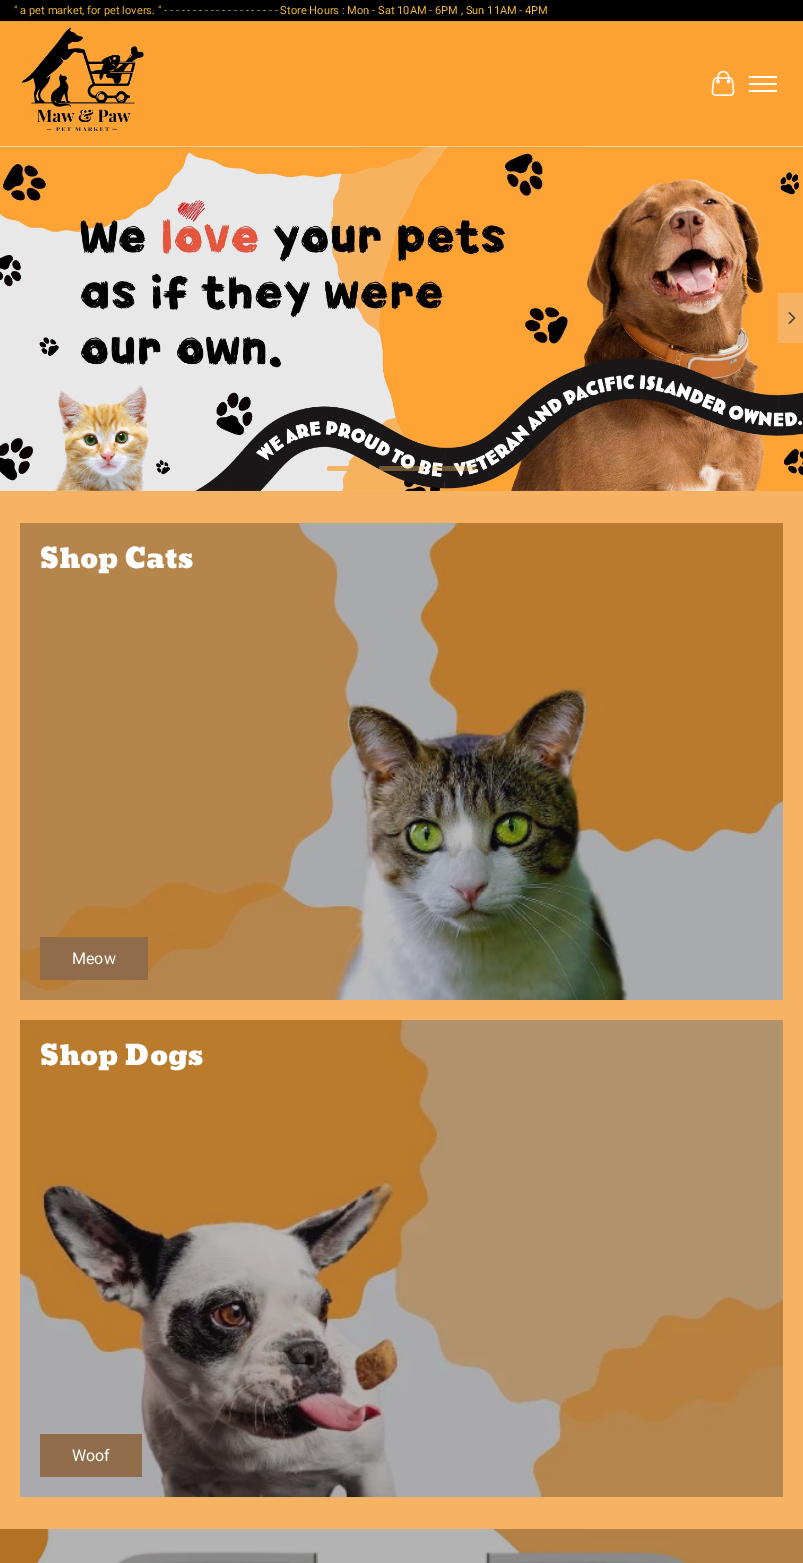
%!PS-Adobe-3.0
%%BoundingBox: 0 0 803 1563
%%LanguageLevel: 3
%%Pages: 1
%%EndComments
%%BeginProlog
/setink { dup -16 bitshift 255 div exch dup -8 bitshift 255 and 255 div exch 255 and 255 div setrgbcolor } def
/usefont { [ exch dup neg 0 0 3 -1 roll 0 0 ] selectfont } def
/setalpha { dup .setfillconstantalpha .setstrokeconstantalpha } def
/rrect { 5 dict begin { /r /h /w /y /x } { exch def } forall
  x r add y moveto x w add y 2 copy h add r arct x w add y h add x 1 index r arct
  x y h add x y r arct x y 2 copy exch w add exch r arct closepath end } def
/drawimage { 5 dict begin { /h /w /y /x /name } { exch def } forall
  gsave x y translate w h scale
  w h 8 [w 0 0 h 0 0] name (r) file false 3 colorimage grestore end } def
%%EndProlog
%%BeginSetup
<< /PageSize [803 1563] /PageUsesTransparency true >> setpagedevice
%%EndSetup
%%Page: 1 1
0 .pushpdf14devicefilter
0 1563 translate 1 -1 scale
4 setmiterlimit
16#F7B363 setink
0 0 803 1563 rectfill
16#FEA233 setink
0 21 803 125 rectfill
16#000000 setink
0 0 803 21 rectfill
/Roboto-Regular 11.1 usefont
16#F0B835 setink
14 14 moveto (" a pet market, for pet lovers. " - - - - - - - - - - - - - - - - - - - - Store Hours : Mon - Sat 10AM - 6PM , Sun 11AM - 4PM) show
(img1.raw) 21 27 123 105 drawimage
(img2.raw) 711 71 24 25 drawimage
[
    [749 83 28 2 16#FFFFFF]
    [749 76 28 2 16#FFFFFF]
    [749 90 28 2 16#FFFFFF]
] { aload pop setink rectfill } forall
(img3.raw) 0 146 803 345 drawimage
16#F7B363 setink
778 293 25 50 rectfill
16#414141 setink
1.4 setlinewidth
789 323.5 moveto 794.5 318 lineto 789 312.5 lineto stroke
16#F7B363 setink
327 466 44 5 2.5 rrect fill
0.4 setalpha
379 466 45 5 2.5 rrect fill
432 466 44 5 2.5 rrect fill
1 setalpha
(img4.raw) 20 523 763 477 drawimage
/Angkor-Regular 27.5 usefont
16#FFFFFF setink
40 568 moveto (Shop Cats) show
16#906C4A setink
40 937 108 43 rectfill
/Roboto-Regular 16 usefont
16#FFFFFF setink
72 964 moveto (Meow) show
(img5.raw) 20 1020 763 477 drawimage
/Angkor-Regular 27.5 usefont
40 1065 moveto (Shop Dogs) show
16#906C4A setink
40 1434 102 43 rectfill
/Roboto-Regular 16 usefont
16#FFFFFF setink
72 1461 moveto (Woof) show
(img6.raw) 0 1529 803 34 drawimage
.poppdf14devicefilter showpage
%%EOF
